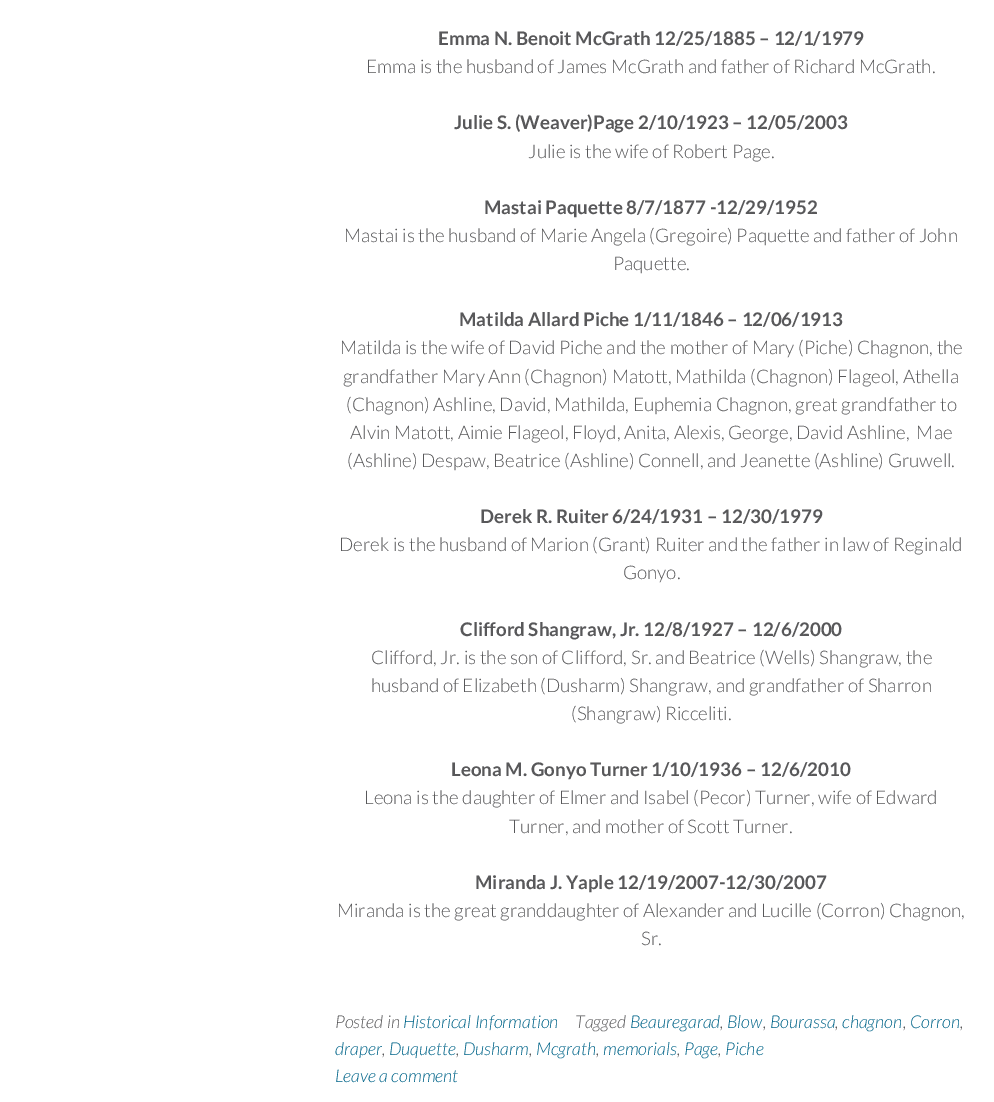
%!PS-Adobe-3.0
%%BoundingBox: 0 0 994 1102
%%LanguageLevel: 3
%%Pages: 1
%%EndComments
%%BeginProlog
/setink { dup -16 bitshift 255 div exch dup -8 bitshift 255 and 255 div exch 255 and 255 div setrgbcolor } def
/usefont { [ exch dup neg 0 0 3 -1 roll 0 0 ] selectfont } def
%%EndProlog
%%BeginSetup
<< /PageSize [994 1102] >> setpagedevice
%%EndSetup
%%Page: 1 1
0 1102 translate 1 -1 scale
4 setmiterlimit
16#FFFFFF setink
0 0 994 1102 rectfill
/Lato-Bold 18.75 usefont
16#58585A setink
438 45 moveto (Emma N. Benoit McGrath 12/25/1885 – 12/1/1979) show
/Lato-Light 18.75 usefont
366 73 moveto (Emma is the husband of James McGrath and father of Richard McGrath.) show
/Lato-Bold 18.75 usefont
454 129 moveto (Julie S. \(Weaver\)Page 2/10/1923 – 12/05/2003) show
/Lato-Light 18.75 usefont
528 158 moveto (Julie is the wife of Robert Page.) show
/Lato-Bold 18.75 usefont
484 214 moveto (Mastai Paquette 8/7/1877 -12/29/1952) show
/Lato-Light 18.75 usefont
344 242 moveto (Mastai is the husband of Marie Angela \(Gregoire\) Paquette and father of John) show
613 270 moveto (Paquette.) show
/Lato-Bold 18.75 usefont
459 326 moveto (Matilda Allard Piche 1/11/1846 – 12/06/1913) show
/Lato-Light 18.75 usefont
[
    [(Matilda is the wife of David Piche and the mother of Mary \(Piche\) Chagnon, the) 340 354]
    [(grandfather Mary Ann \(Chagnon\) Matott, Mathilda \(Chagnon\) Flageol, Athella) 343 383]
    [(\(Chagnon\) Ashline, David, Mathilda, Euphemia Chagnon, great grandfather to) 346 411]
    [(Alvin Matott, Aimie Flageol, Floyd, Anita, Alexis, George, David Ashline,  Mae) 350 439]
    [(\(Ashline\) Despaw, Beatrice \(Ashline\) Connell, and Jeanette \(Ashline\) Gruwell.) 347 467]
] { aload pop moveto show } forall
/Lato-Bold 18.75 usefont
480 523 moveto (Derek R. Ruiter 6/24/1931 – 12/30/1979) show
/Lato-Light 18.75 usefont
339 551 moveto (Derek is the husband of Marion \(Grant\) Ruiter and the father in law of Reginald) show
623 579 moveto (Gonyo.) show
/Lato-Bold 18.75 usefont
460 636 moveto (Clifford Shangraw, Jr. 12/8/1927 – 12/6/2000) show
/Lato-Light 18.75 usefont
[
    [(Clifford, Jr. is the son of Clifford, Sr. and Beatrice \(Wells\) Shangraw, the) 371 664]
    [(husband of Elizabeth \(Dusharm\) Shangraw, and grandfather of Sharron) 371 692]
    [(\(Shangraw\) Ricceliti.) 571 720]
] { aload pop moveto show } forall
/Lato-Bold 18.75 usefont
451 776 moveto (Leona M. Gonyo Turner 1/10/1936 – 12/6/2010) show
/Lato-Light 18.75 usefont
364 804 moveto (Leona is the daughter of Elmer and Isabel \(Pecor\) Turner, wife of Edward) show
509 833 moveto (Turner, and mother of Scott Turner.) show
/Lato-Bold 18.75 usefont
475 889 moveto (Miranda J. Yaple 12/19/2007-12/30/2007) show
/Lato-Light 18.75 usefont
337 917 moveto (Miranda is the great granddaughter of Alexander and Lucille \(Corron\) Chagnon,) show
641 945 moveto (Sr.) show
/Lato-LightItalic 17.75 usefont
335 1028 moveto (Posted in) show
16#006489 setink
403 1028 moveto (Historical Information) show
16#58585A setink
575 1028 moveto (Tagged) show
16#006489 setink
630 1028 moveto (Beauregarad) show
16#58585A setink
720 1028 moveto (,) show
16#006489 setink
727 1028 moveto (Blow) show
16#58585A setink
763 1028 moveto (,) show
16#006489 setink
770 1028 moveto (Bourassa) show
16#58585A setink
835 1028 moveto (,) show
16#006489 setink
842 1028 moveto (chagnon) show
16#58585A setink
903 1028 moveto (,) show
16#006489 setink
910 1028 moveto (Corron) show
16#58585A setink
960 1028 moveto (,) show
16#006489 setink
335 1055 moveto (draper) show
16#58585A setink
382 1055 moveto (,) show
16#006489 setink
389 1055 moveto (Duquette) show
16#58585A setink
456 1055 moveto (,) show
16#006489 setink
463 1055 moveto (Dusharm) show
16#58585A setink
529 1055 moveto (,) show
16#006489 setink
536 1055 moveto (Mcgrath) show
16#58585A setink
596 1055 moveto (,) show
16#006489 setink
603 1055 moveto (memorials) show
16#58585A setink
677 1055 moveto (,) show
16#006489 setink
684 1055 moveto (Page) show
16#58585A setink
718 1055 moveto (,) show
16#006489 setink
725 1055 moveto (Piche) show
335 1082 moveto (Leave a comment) show
showpage
%%EOF
